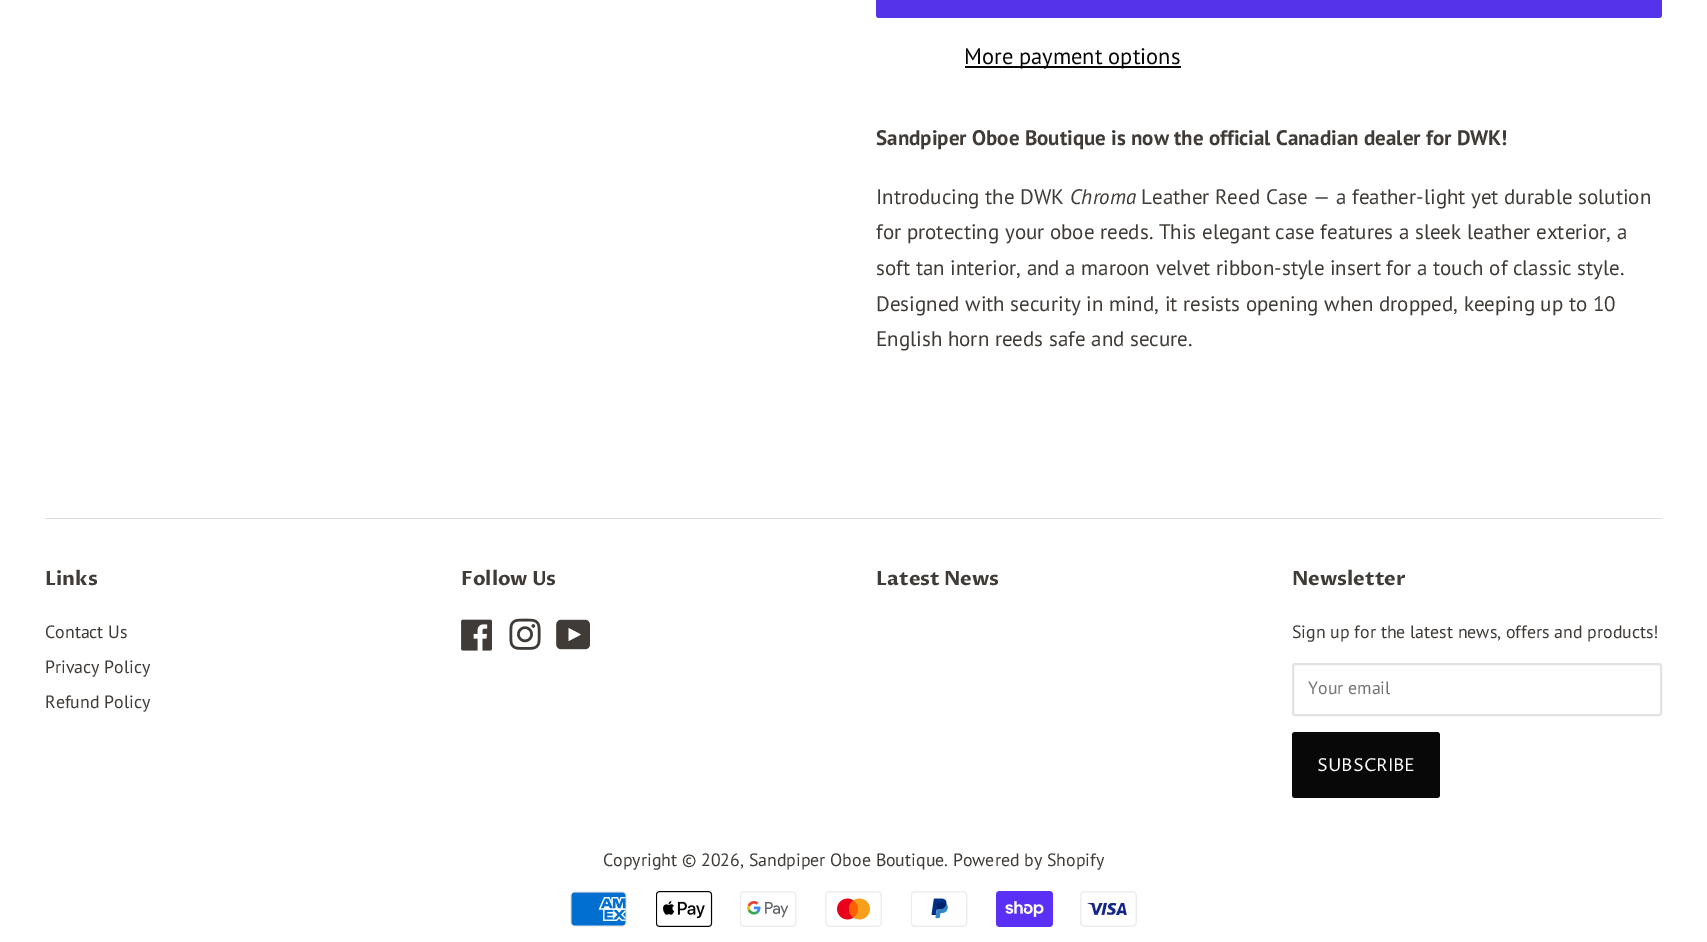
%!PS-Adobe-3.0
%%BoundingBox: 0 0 1707 942
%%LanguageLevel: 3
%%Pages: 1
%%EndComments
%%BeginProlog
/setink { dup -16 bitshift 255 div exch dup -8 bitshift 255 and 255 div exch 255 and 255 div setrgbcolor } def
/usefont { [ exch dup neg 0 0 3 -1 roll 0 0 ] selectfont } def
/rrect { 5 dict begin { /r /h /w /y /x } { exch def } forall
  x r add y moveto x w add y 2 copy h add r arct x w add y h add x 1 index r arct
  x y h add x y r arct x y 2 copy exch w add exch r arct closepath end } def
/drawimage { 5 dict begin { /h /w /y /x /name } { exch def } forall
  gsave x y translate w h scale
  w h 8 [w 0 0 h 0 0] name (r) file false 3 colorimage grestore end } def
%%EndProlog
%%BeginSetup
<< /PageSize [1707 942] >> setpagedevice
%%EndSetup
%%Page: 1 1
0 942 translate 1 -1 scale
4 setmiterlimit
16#FFFFFF setink
0 0 1707 942 rectfill
16#5433EB setink
876 -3 786 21 3 rrect fill
16#080808 setink
965 66 216 2 rectfill
/PTSans-Regular 22.5 usefont
964 64 moveto (More payment options) show
/PTSans-Bold 21 usefont
16#403B37 setink
876 145 moveto (Sandpiper Oboe Boutique is now the official Canadian dealer for DWK!) show
/PTSans-Regular 21 usefont
876 204 moveto (Introducing the DWK) show
/PTSans-Italic 21 usefont
1070 204 moveto (Chroma) show
/PTSans-Regular 21 usefont
[
    [(Leather Reed Case — a feather-light yet durable solution) 1141 204]
    [(for protecting your oboe reeds. This elegant case features a sleek leather exterior, a) 876 239]
    [(soft tan interior, and a maroon velvet ribbon-style insert for a touch of classic style.) 876 275]
    [(Designed with security in mind, it resists opening when dropped, keeping up to 10) 876 311]
    [(English horn reeds safe and secure.) 876 346]
] { aload pop moveto show } forall
16#DDDDDD setink
45 518 1617 1 rectfill
/ProzaLibre-Bold 19.5 usefont
16#403B37 setink
45 585 moveto (Links) show
/PTSans-Regular 17.85 usefont
[
    [(Contact Us) 45 638]
    [(Privacy Policy) 45 673]
    [(Refund Policy) 45 708]
] { aload pop moveto show } forall
/ProzaLibre-Bold 19.5 usefont
461 585 moveto (Follow Us) show
(img1.raw) 461 619 31 32 drawimage
(img2.raw) 509 618 32 32 drawimage
(img3.raw) 556 619 34 31 drawimage
876 585 moveto (Latest News) show
1292 585 moveto (Newsletter) show
/PTSans-Regular 17.85 usefont
1292 638 moveto (Sign up for the latest news, offers and products!) show
16#E2E2E1 setink
2 setlinewidth
1293 664 368 51 2 rrect stroke
16#757575 setink
1308 694 moveto (Your email) show
16#080808 setink
1292 732 148 66 3 rrect fill
/ProzaLibre-Regular 17.85 usefont
16#FFFFFF setink
1317 771 moveto (SUBSCRIBE) show
/PTSans-Regular 17.85 usefont
16#403B37 setink
603 866 moveto (Copyright © 2026, Sandpiper Oboe Boutique. Powered by Shopify) show
(img4.raw) 570 891 57 36 drawimage
(img5.raw) 656 891 57 36 drawimage
(img6.raw) 740 891 57 36 drawimage
(img7.raw) 825 891 57 36 drawimage
(img8.raw) 911 891 57 36 drawimage
(img9.raw) 996 891 57 36 drawimage
(img10.raw) 1080 891 57 36 drawimage
showpage
%%EOF
